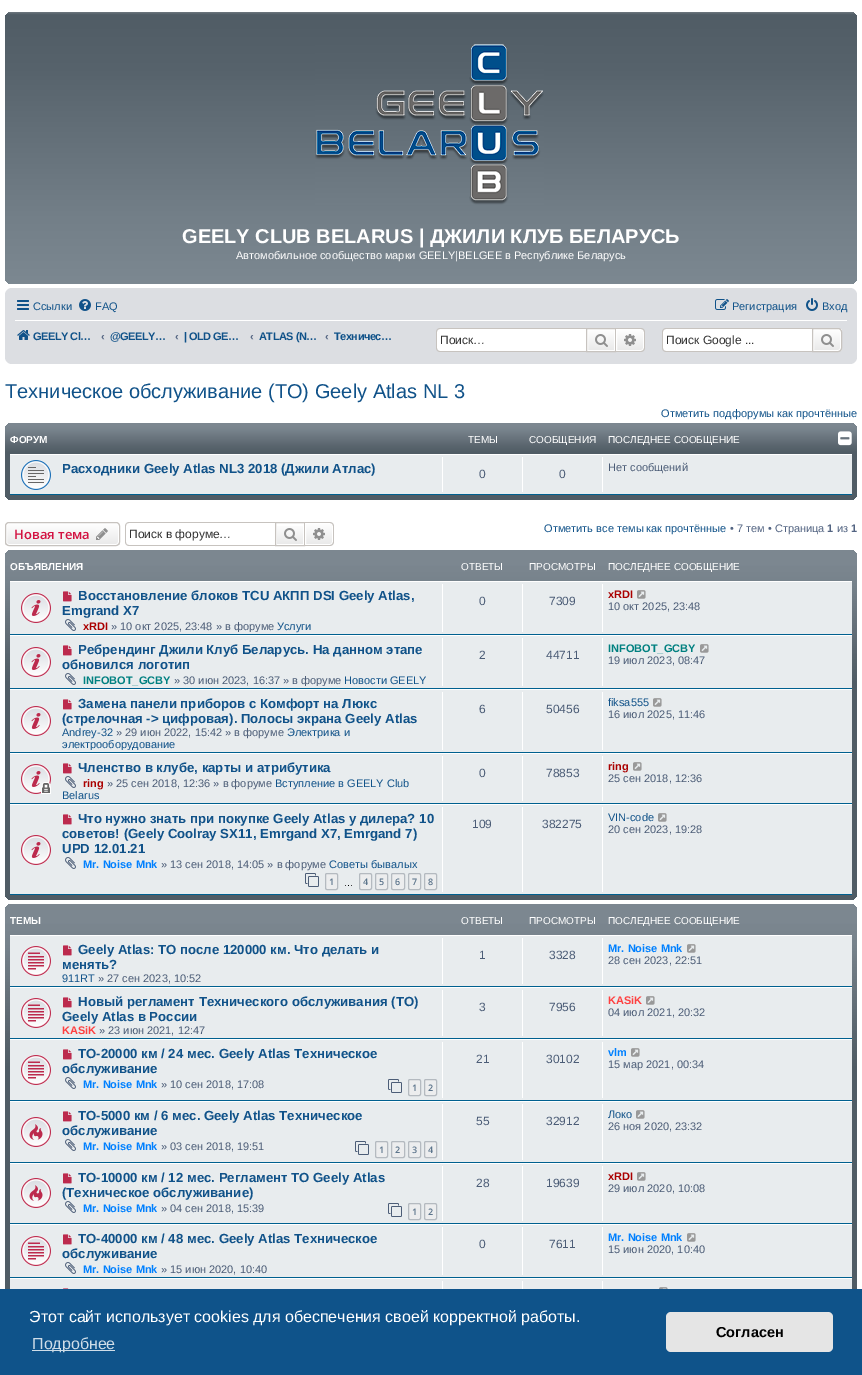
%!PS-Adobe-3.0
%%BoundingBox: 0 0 862 1375
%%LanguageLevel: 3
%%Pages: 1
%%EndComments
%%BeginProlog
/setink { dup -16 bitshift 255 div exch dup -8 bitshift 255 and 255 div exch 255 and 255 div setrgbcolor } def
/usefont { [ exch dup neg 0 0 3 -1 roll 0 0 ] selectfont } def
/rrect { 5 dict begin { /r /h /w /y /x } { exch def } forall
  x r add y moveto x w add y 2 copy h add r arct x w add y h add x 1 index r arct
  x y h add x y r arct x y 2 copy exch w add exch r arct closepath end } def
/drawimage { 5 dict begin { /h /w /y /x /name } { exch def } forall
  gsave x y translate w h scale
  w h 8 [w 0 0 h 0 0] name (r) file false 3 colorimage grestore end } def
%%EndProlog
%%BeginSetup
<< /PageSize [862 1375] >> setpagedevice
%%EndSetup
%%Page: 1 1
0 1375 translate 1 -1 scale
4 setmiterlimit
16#FFFFFF setink
0 0 862 1375 rectfill
gsave 5 12 852 272 7 rrect clip newpath
<< /ShadingType 2 /ColorSpace /DeviceRGB /Coords [431 12 431 284] /Extend [true true] /Function << /FunctionType 3 /Domain [0 1] /Functions [<< /FunctionType 2 /Domain [0 1] /C0 [0.431 0.467 0.498] /C1 [0.314 0.361 0.396] /N 1 >> << /FunctionType 2 /Domain [0 1] /C0 [0.314 0.361 0.396] /C1 [0.337 0.384 0.42] /N 1 >> << /FunctionType 2 /Domain [0 1] /C0 [0.337 0.384 0.42] /C1 [0.451 0.498 0.533] /N 1 >> << /FunctionType 2 /Domain [0 1] /C0 [0.451 0.498 0.533] /C1 [0.486 0.533 0.569] /N 1 >>] /Bounds [0.01 0.2 0.75] /Encode [0 1 0 1 0 1 0 1] >> >> shfill grestore
(img1.raw) 315 44 229 161 drawimage
/LiberationSans-Bold 20 usefont
182 243 moveto (GEELY CLUB BELARUS | ДЖИЛИ КЛУБ БЕЛАРУСЬ) show
/LiberationSans-Regular 11 usefont
236 259 moveto (Автомобильное сообщество марки GEELY|BELGEE в Республике Беларусь) show
16#DCDEE2 setink
5 288 852 76 7 rrect fill
(img2.raw) 17 300 12 10 drawimage
16#105289 setink
33 310 moveto (Ссылки) show
(img3.raw) 79 299 12 12 drawimage
95 310 moveto (FAQ) show
(img4.raw) 715 299 14 11 drawimage
732 310 moveto (Регистрация) show
(img5.raw) 806 298 12 13 drawimage
822 310 moveto (Вход) show
16#FFFFFF setink
15 320 832 1 rectfill
(img6.raw) 17 330 13 10 drawimage
/LiberationSans-Bold 11 usefont
16#105289 setink
33 340 moveto -0.5 0 (GEELY Cl…) ashow
16#536482 setink
101 340 moveto (‹) show
16#105289 setink
110 340 moveto -0.5 0 (@GEELY…) ashow
16#536482 setink
175 340 moveto (‹) show
16#105289 setink
184 340 moveto -0.5 0 (| OLD GE…) ashow
16#536482 setink
250 340 moveto (‹) show
16#105289 setink
259 340 moveto -0.5 0 (ATLAS \(N…) ashow
16#536482 setink
325 340 moveto (‹) show
16#105289 setink
334 340 moveto -0.5 0 (Техничес…) ashow
16#FFFFFF setink
440 329 moveto 586 329 lineto 586 351 lineto 440 351 lineto 438.5 351 437 349.5 437 348 curveto 437 332 lineto 437 330.5 438.5 329 440 329 curveto closepath fill
16#C7C3BF setink
440 328 moveto 586 328 lineto 586 352 lineto 440 352 lineto 438 352 436 350 436 348 curveto 436 332 lineto 436 330 438 328 440 328 curveto closepath 440 329 moveto 586 329 lineto 586 351 lineto 440 351 lineto 438 351 437 350 437 348 curveto 437 332 lineto 437 330 438 329 440 329 curveto closepath eofill
/LiberationSans-Regular 12 usefont
16#333333 setink
440 344 moveto (Поиск…) show
gsave 588 330 moveto 614 330 lineto 614 350 lineto 588 350 lineto closepath clip newpath
<< /ShadingType 2 /ColorSpace /DeviceRGB /Coords [601 329 601 351] /Extend [true true] /Function << /FunctionType 2 /Domain [0 1] /C0 [1 1 1] /C1 [0.914 0.914 0.914] /N 1 >> >> shfill grestore
16#FFFFFF setink
587.5 329.5 27 21 rectstroke
16#C7C3BF setink
586.5 328.5 29 23 rectstroke
(img7.raw) 595 334 13 13 drawimage
gsave 616.5 329.5 moveto 641 329.5 lineto 642.5 329.5 643.5 330.5 643.5 332 curveto 643.5 348 lineto 643.5 349.5 642.5 350.5 641 350.5 curveto 616.5 350.5 lineto closepath clip newpath
<< /ShadingType 2 /ColorSpace /DeviceRGB /Coords [630 329 630 351] /Extend [true true] /Function << /FunctionType 2 /Domain [0 1] /C0 [1 1 1] /C1 [0.914 0.914 0.914] /N 1 >> >> shfill grestore
16#FFFFFF setink
616.5 329.5 moveto 641 329.5 lineto 642.5 329.5 643.5 330.5 643.5 332 curveto 643.5 348 lineto 643.5 349.5 642.5 350.5 641 350.5 curveto 616.5 350.5 lineto closepath stroke
16#C7C3BF setink
616 328 moveto 641 328 lineto 643 328 645 330 645 332 curveto 645 348 lineto 645 350 643 352 641 352 curveto 616 352 lineto closepath 616 329 moveto 641 329 lineto 642.5 329 644 330.5 644 332 curveto 644 348 lineto 644 349.5 642.5 351 641 351 curveto 616 351 lineto closepath eofill
(img8.raw) 624 334 12 12 drawimage
16#FFFFFF setink
666 329 moveto 812 329 lineto 812 351 lineto 666 351 lineto 664.5 351 663 349.5 663 348 curveto 663 332 lineto 663 330.5 664.5 329 666 329 curveto closepath fill
16#C7C3BF setink
666 328 moveto 812 328 lineto 812 352 lineto 666 352 lineto 664 352 662 350 662 348 curveto 662 332 lineto 662 330 664 328 666 328 curveto closepath 666 329 moveto 812 329 lineto 812 351 lineto 666 351 lineto 664 351 663 350 663 348 curveto 663 332 lineto 663 330 664 329 666 329 curveto closepath eofill
16#333333 setink
666 344 moveto (Поиск Google ...) show
gsave
812 328 moveto 838 328 lineto 840 328 842 330 842 332 curveto 842 348 lineto 842 350 840 352 838 352 curveto 812 352 lineto closepath clip newpath
gsave 814 329 moveto 842 329 lineto 842 351 lineto 814 351 lineto closepath clip newpath
<< /ShadingType 2 /ColorSpace /DeviceRGB /Coords [827 329 827 351] /Extend [true true] /Function << /FunctionType 2 /Domain [0 1] /C0 [1 1 1] /C1 [0.914 0.914 0.914] /N 1 >> >> shfill grestore
grestore
16#FFFFFF setink
813.5 329.5 moveto 838 329.5 lineto 839.5 329.5 840.5 330.5 840.5 332 curveto 840.5 348 lineto 840.5 349.5 839.5 350.5 838 350.5 curveto 813.5 350.5 lineto closepath stroke
16#C7C3BF setink
812.5 328.5 moveto 838 328.5 lineto 840 328.5 841.5 330 841.5 332 curveto 841.5 348 lineto 841.5 350 840 351.5 838 351.5 curveto 812.5 351.5 lineto closepath stroke
(img7.raw) 821 334 13 13 drawimage
/LiberationSans-Regular 20 usefont
16#105289 setink
5 398 moveto (Техническое обслуживание \(ТО\) Geely Atlas NL 3) show
/LiberationSans-Regular 11 usefont
661 417 moveto (Отметить подфорумы как прочтённые) show
gsave 5 423 852 77 7 rrect clip newpath
<< /ShadingType 2 /ColorSpace /DeviceRGB /Coords [431 423 431 500] /Extend [true true] /Function << /FunctionType 3 /Domain [0 1] /Functions [<< /FunctionType 2 /Domain [0 1] /C0 [0.486 0.533 0.569] /C1 [0.486 0.529 0.565] /N 1 >> << /FunctionType 2 /Domain [0 1] /C0 [0.486 0.529 0.565] /C1 [0.463 0.51 0.545] /N 1 >> << /FunctionType 2 /Domain [0 1] /C0 [0.463 0.51 0.545] /C1 [0.357 0.4 0.435] /N 1 >> << /FunctionType 2 /Domain [0 1] /C0 [0.357 0.4 0.435] /C1 [0.314 0.361 0.396] /N 1 >> << /FunctionType 2 /Domain [0 1] /C0 [0.314 0.361 0.396] /C1 [0.314 0.361 0.396] /N 1 >>] /Bounds [0.04 0.1 0.29 0.38] /Encode [0 1 0 1 0 1 0 1 0 1] >> >> shfill grestore
/LiberationSans-Bold 10 usefont
16#FFFFFF setink
10 443 moveto (ФОРУМ) show
/LiberationSans-Regular 10 usefont
[
    [(ТЕМЫ) 468 443]
    [(СООБЩЕНИЯ) 529 443]
    [(ПОСЛЕДНЕЕ СООБЩЕНИЕ) 608 443]
] { aload pop moveto show } forall
(img9.raw) 838 431 14 15 drawimage
[
    [10 455 842 39 16#E8ECEE]
    [10 454 842 1 16#FFFFFF]
    [10 494 842 1 16#00608F]
] { aload pop setink rectfill } forall
(img10.raw) 21 460 30 30 drawimage
/LiberationSans-Bold 13.2 usefont
16#105289 setink
62 473 moveto (Расходники Geely Atlas NL3 2018 \(Джили Атлас\)) show
16#FFFFFF setink
442 457 1 35 rectfill
/LiberationSans-Regular 12 usefont
16#4C5D77 setink
479 478 moveto (0) show
16#FFFFFF setink
522 457 1 35 rectfill
16#4C5D77 setink
559 478 moveto (0) show
16#FFFFFF setink
602 457 1 35 rectfill
/LiberationSans-Regular 11 usefont
16#4C5D77 setink
608 471 moveto (Нет сообщений) show
gsave
5 522 115 24 4 rrect clip newpath
gsave 5 523 moveto 120 523 lineto 120 545 lineto 5 545 lineto closepath clip newpath
<< /ShadingType 2 /ColorSpace /DeviceRGB /Coords [63 523 63 545] /Extend [true true] /Function << /FunctionType 2 /Domain [0 1] /C0 [1 1 1] /C1 [0.914 0.914 0.914] /N 1 >> >> shfill grestore
grestore
16#FFFFFF setink
6.5 523.5 112 21 2.5 rrect stroke
16#C7C3BF setink
5.5 522.5 114 23 3.5 rrect stroke
/OpenSans-SemiBold 13 usefont
16#D31141 setink
14 539 moveto (Новая тема) show
(img11.raw) 96 528 12 12 drawimage
16#C7C3BF setink
129 522 moveto 275 522 lineto 275 546 lineto 129 546 lineto 127 546 125 544 125 542 curveto 125 526 lineto 125 524 127 522 129 522 curveto closepath 129 523 moveto 275 523 lineto 275 545 lineto 129 545 lineto 127 545 126 544 126 542 curveto 126 526 lineto 126 524 127 523 129 523 curveto closepath eofill
/LiberationSans-Regular 12 usefont
16#333333 setink
129 538 moveto (Поиск в форуме…) show
gsave 277 526 moveto 303 526 lineto 303 544 lineto 277 544 lineto closepath clip newpath
<< /ShadingType 2 /ColorSpace /DeviceRGB /Coords [290 523 290 545] /Extend [true true] /Function << /FunctionType 2 /Domain [0 1] /C0 [1 1 1] /C1 [0.914 0.914 0.914] /N 1 >> >> shfill grestore
16#C7C3BF setink
275.5 522.5 29 23 rectstroke
(img7.raw) 284 528 13 13 drawimage
gsave 305.5 523.5 moveto 330 523.5 lineto 331.5 523.5 332.5 524.5 332.5 526 curveto 332.5 542 lineto 332.5 543.5 331.5 544.5 330 544.5 curveto 305.5 544.5 lineto closepath clip newpath
<< /ShadingType 2 /ColorSpace /DeviceRGB /Coords [319 523 319 545] /Extend [true true] /Function << /FunctionType 2 /Domain [0 1] /C0 [1 1 1] /C1 [0.914 0.914 0.914] /N 1 >> >> shfill grestore
16#FFFFFF setink
305.5 523.5 moveto 330 523.5 lineto 331.5 523.5 332.5 524.5 332.5 526 curveto 332.5 542 lineto 332.5 543.5 331.5 544.5 330 544.5 curveto 305.5 544.5 lineto closepath stroke
16#C7C3BF setink
305 522 moveto 330 522 lineto 332 522 334 524 334 526 curveto 334 542 lineto 334 544 332 546 330 546 curveto 305 546 lineto closepath 305 523 moveto 330 523 lineto 331.5 523 333 524.5 333 526 curveto 333 542 lineto 333 543.5 331.5 545 330 545 curveto 305 545 lineto closepath eofill
(img8.raw) 313 528 12 12 drawimage
/LiberationSans-Regular 11 usefont
16#105289 setink
544 532 moveto (Отметить все темы как прочтённые) show
16#536482 setink
730 532 moveto (• 7 тем • Страница) show
/LiberationSans-Bold 11 usefont
827 532 moveto (1) show
/LiberationSans-Regular 11 usefont
837 532 moveto (из) show
/LiberationSans-Bold 11 usefont
851 532 moveto (1) show
gsave 5 550 852 350 7 rrect clip newpath
<< /ShadingType 2 /ColorSpace /DeviceRGB /Coords [431 550 431 900] /Extend [true true] /Function << /FunctionType 3 /Domain [0 1] /Functions [<< /FunctionType 2 /Domain [0 1] /C0 [0.486 0.533 0.569] /C1 [0.486 0.529 0.565] /N 1 >> << /FunctionType 2 /Domain [0 1] /C0 [0.486 0.529 0.565] /C1 [0.463 0.51 0.545] /N 1 >> << /FunctionType 2 /Domain [0 1] /C0 [0.463 0.51 0.545] /C1 [0.357 0.4 0.435] /N 1 >> << /FunctionType 2 /Domain [0 1] /C0 [0.357 0.4 0.435] /C1 [0.314 0.361 0.396] /N 1 >> << /FunctionType 2 /Domain [0 1] /C0 [0.314 0.361 0.396] /C1 [0.314 0.361 0.396] /N 1 >>] /Bounds [0.04 0.1 0.29 0.38] /Encode [0 1 0 1 0 1 0 1 0 1] >> >> shfill grestore
/LiberationSans-Bold 10 usefont
16#FFFFFF setink
10 570 moveto (ОБЪЯВЛЕНИЯ) show
/LiberationSans-Regular 10 usefont
[
    [(ОТВЕТЫ) 461 570]
    [(ПРОСМОТРЫ) 529 570]
    [(ПОСЛЕДНЕЕ СООБЩЕНИЕ) 608 570]
] { aload pop moveto show } forall
[
    [10 582 842 52 16#E8ECEE]
    [10 581 842 1 16#FFFFFF]
    [10 634 842 1 16#00608F]
] { aload pop setink rectfill } forall
(img12.raw) 21 593 30 30 drawimage
(img13.raw) 63 591 9 11 drawimage
/LiberationSans-Bold 13.2 usefont
16#105289 setink
78 600 moveto (Восстановление блоков TCU АКПП DSI Geely Atlas,) show
62 615 moveto (Emgrand X7) show
(img14.raw) 65 619 11 12 drawimage
/LiberationSans-Bold 11 usefont
16#AA0000 setink
83 630 moveto (xRDI) show
/LiberationSans-Regular 11 usefont
16#4C5D77 setink
111 630 moveto (» 10 окт 2025, 23:48) show
gsave
10 584 842 48 rectclip
216 630 moveto (» в форуме) show
grestore
16#105289 setink
277 630 moveto (Услуги) show
16#FFFFFF setink
442 584 1 48 rectfill
/LiberationSans-Regular 12 usefont
16#4C5D77 setink
479 605 moveto (0) show
16#FFFFFF setink
522 584 1 48 rectfill
16#4C5D77 setink
549 605 moveto (7309) show
16#FFFFFF setink
602 584 1 48 rectfill
/LiberationSans-Bold 11 usefont
16#AA0000 setink
608 598 moveto (xRDI) show
(img15.raw) 637 590 9 9 drawimage
/LiberationSans-Regular 11 usefont
16#4C5D77 setink
608 610 moveto (10 окт 2025, 23:48) show
[
    [10 636 842 52 16#E8ECEE]
    [10 635 842 1 16#FFFFFF]
    [10 688 842 1 16#00608F]
] { aload pop setink rectfill } forall
(img12.raw) 21 647 30 30 drawimage
(img13.raw) 63 645 9 11 drawimage
/LiberationSans-Bold 13.2 usefont
16#105289 setink
78 654 moveto (Ребрендинг Джили Клуб Беларусь. На данном этапе) show
62 669 moveto (обновился логотип) show
(img14.raw) 65 673 11 12 drawimage
/LiberationSans-Bold 11 usefont
16#008080 setink
83 684 moveto (INFOBOT_GCBY) show
/LiberationSans-Regular 11 usefont
16#4C5D77 setink
174 684 moveto (» 30 июн 2023, 16:37) show
gsave
10 638 842 48 rectclip
283 684 moveto (» в форуме) show
grestore
16#105289 setink
344 684 moveto (Новости GEELY) show
16#FFFFFF setink
442 638 1 48 rectfill
/LiberationSans-Regular 12 usefont
16#4C5D77 setink
479 659 moveto (2) show
16#FFFFFF setink
522 638 1 48 rectfill
16#4C5D77 setink
546 659 moveto (44711) show
16#FFFFFF setink
602 638 1 48 rectfill
/LiberationSans-Bold 11 usefont
16#008080 setink
608 652 moveto (INFOBOT_GCBY) show
(img15.raw) 700 644 9 9 drawimage
/LiberationSans-Regular 11 usefont
16#4C5D77 setink
608 664 moveto (19 июл 2023, 08:47) show
[
    [10 690 842 62 16#E8ECEE]
    [10 689 842 1 16#FFFFFF]
    [10 752 842 1 16#00608F]
] { aload pop setink rectfill } forall
(img12.raw) 21 706 30 30 drawimage
(img13.raw) 63 699 9 11 drawimage
/LiberationSans-Bold 13.2 usefont
16#105289 setink
78 708 moveto (Замена панели приборов с Комфорт на Люкс) show
62 723 moveto (\(стрелочная -> цифровая\). Полосы экрана Geely Atlas) show
/LiberationSans-Regular 11 usefont
62 736 moveto (Andrey-32) show
16#4C5D77 setink
116 736 moveto (» 29 июн 2022, 15:42 » в форуме) show
16#105289 setink
287 736 moveto (Электрика и) show
gsave
10 692 842 58 rectclip
62 748 moveto (электрооборудование) show
grestore
16#FFFFFF setink
442 692 1 58 rectfill
/LiberationSans-Regular 12 usefont
16#4C5D77 setink
479 713 moveto (6) show
16#FFFFFF setink
522 692 1 58 rectfill
16#4C5D77 setink
546 713 moveto (50456) show
16#FFFFFF setink
602 692 1 58 rectfill
/LiberationSans-Regular 11 usefont
16#105289 setink
608 706 moveto (fiksa555) show
(img15.raw) 653 698 9 9 drawimage
16#4C5D77 setink
608 718 moveto (16 июл 2025, 11:46) show
[
    [10 754 842 49 16#E8ECEE]
    [10 753 842 1 16#FFFFFF]
    [10 803 842 1 16#00608F]
] { aload pop setink rectfill } forall
(img16.raw) 21 764 30 30 drawimage
(img13.raw) 63 763 9 11 drawimage
/LiberationSans-Bold 13.2 usefont
16#105289 setink
78 772 moveto (Членство в клубе, карты и атрибутика) show
(img14.raw) 65 776 11 12 drawimage
/LiberationSans-Bold 11 usefont
16#AA0000 setink
83 787 moveto (ring) show
/LiberationSans-Regular 11 usefont
16#4C5D77 setink
107 787 moveto (» 25 сен 2018, 12:36 » в форуме) show
16#105289 setink
275 787 moveto (Вступление в GEELY Club) show
62 799 moveto (Belarus) show
16#FFFFFF setink
442 756 1 45 rectfill
/LiberationSans-Regular 12 usefont
16#4C5D77 setink
479 777 moveto (0) show
16#FFFFFF setink
522 756 1 45 rectfill
16#4C5D77 setink
546 777 moveto (78853) show
16#FFFFFF setink
602 756 1 45 rectfill
/LiberationSans-Bold 11 usefont
16#AA0000 setink
608 770 moveto (ring) show
(img15.raw) 633 762 9 9 drawimage
/LiberationSans-Regular 11 usefont
16#4C5D77 setink
608 782 moveto (25 сен 2018, 12:36) show
[
    [10 805 842 89 16#E8ECEE]
    [10 804 842 1 16#FFFFFF]
    [10 894 842 1 16#00608F]
] { aload pop setink rectfill } forall
(img12.raw) 21 835 30 30 drawimage
(img13.raw) 63 814 9 11 drawimage
/LiberationSans-Bold 13.2 usefont
16#105289 setink
[
    [(Что нужно знать при покупке Geely Atlas у дилера? 10) 78 823]
    [(советов! \(Geely Coolray SX11, Emrgand X7, Emrgand 7\)) 62 838]
    [(UPD 12.01.21) 62 853]
] { aload pop moveto show } forall
(img14.raw) 65 857 11 12 drawimage
/LiberationSans-Bold 11 usefont
16#0080FF setink
83 868 moveto (Mr. Noise Mnk) show
/LiberationSans-Regular 11 usefont
16#4C5D77 setink
161 868 moveto (» 13 сен 2018, 14:05 » в форуме) show
16#105289 setink
329 868 moveto (Советы бывалых) show
(img17.raw) 305 873 14 14 drawimage
16#ECEDEE setink
325.5 873.5 12 16 1.5 rrect gsave fill grestore
16#B4BAC0 setink
stroke
/OpenSans-SemiBold 9 usefont
16#5C758C setink
329 885 moveto (1) show
/LiberationSans-Regular 9 usefont
16#000000 setink
344 886 moveto (…) show
16#ECEDEE setink
359.5 873.5 12 16 1.5 rrect gsave fill grestore
16#B4BAC0 setink
stroke
/OpenSans-SemiBold 9 usefont
16#5C758C setink
363 885 moveto (4) show
16#ECEDEE setink
375.5 873.5 12 16 1.5 rrect gsave fill grestore
16#B4BAC0 setink
stroke
16#5C758C setink
379 885 moveto (5) show
16#ECEDEE setink
391.5 873.5 13 16 1.5 rrect gsave fill grestore
16#B4BAC0 setink
stroke
16#5C758C setink
395 885 moveto (6) show
16#ECEDEE setink
408.5 873.5 12 16 1.5 rrect gsave fill grestore
16#B4BAC0 setink
stroke
16#5C758C setink
412 885 moveto (7) show
16#ECEDEE setink
424.5 873.5 12 16 1.5 rrect gsave fill grestore
16#B4BAC0 setink
stroke
16#5C758C setink
428 885 moveto (8) show
16#FFFFFF setink
442 807 1 85 rectfill
/LiberationSans-Regular 12 usefont
16#4C5D77 setink
472 828 moveto (109) show
16#FFFFFF setink
522 807 1 85 rectfill
16#4C5D77 setink
542 828 moveto (382275) show
16#FFFFFF setink
602 807 1 85 rectfill
/LiberationSans-Regular 11 usefont
16#105289 setink
608 821 moveto (VIN-code) show
(img15.raw) 658 813 9 9 drawimage
16#4C5D77 setink
608 833 moveto (20 сен 2023, 19:28) show
gsave 5 904 852 433 7 rrect clip newpath
<< /ShadingType 2 /ColorSpace /DeviceRGB /Coords [431 904 431 1337] /Extend [true true] /Function << /FunctionType 3 /Domain [0 1] /Functions [<< /FunctionType 2 /Domain [0 1] /C0 [0.486 0.533 0.569] /C1 [0.486 0.529 0.565] /N 1 >> << /FunctionType 2 /Domain [0 1] /C0 [0.486 0.529 0.565] /C1 [0.463 0.51 0.545] /N 1 >> << /FunctionType 2 /Domain [0 1] /C0 [0.463 0.51 0.545] /C1 [0.357 0.4 0.435] /N 1 >> << /FunctionType 2 /Domain [0 1] /C0 [0.357 0.4 0.435] /C1 [0.314 0.361 0.396] /N 1 >> << /FunctionType 2 /Domain [0 1] /C0 [0.314 0.361 0.396] /C1 [0.314 0.361 0.396] /N 1 >>] /Bounds [0.04 0.1 0.29 0.38] /Encode [0 1 0 1 0 1 0 1 0 1] >> >> shfill grestore
/LiberationSans-Bold 10 usefont
16#FFFFFF setink
10 924 moveto (ТЕМЫ) show
/LiberationSans-Regular 10 usefont
[
    [(ОТВЕТЫ) 461 924]
    [(ПРОСМОТРЫ) 529 924]
    [(ПОСЛЕДНЕЕ СООБЩЕНИЕ) 608 924]
] { aload pop moveto show } forall
[
    [10 936 842 50 16#E8ECEE]
    [10 935 842 1 16#FFFFFF]
    [10 986 842 1 16#00608F]
] { aload pop setink rectfill } forall
(img18.raw) 21 946 30 30 drawimage
(img13.raw) 63 945 9 11 drawimage
/LiberationSans-Bold 13.2 usefont
16#105289 setink
78 954 moveto (Geely Atlas: ТО после 120000 км. Что делать и) show
62 969 moveto (менять?) show
/LiberationSans-Regular 11 usefont
62 982 moveto (911RT) show
16#4C5D77 setink
98 982 moveto (» 27 сен 2023, 10:52) show
16#FFFFFF setink
442 938 1 46 rectfill
/LiberationSans-Regular 12 usefont
16#4C5D77 setink
479 959 moveto (1) show
16#FFFFFF setink
522 938 1 46 rectfill
16#4C5D77 setink
549 959 moveto (3328) show
16#FFFFFF setink
602 938 1 46 rectfill
/LiberationSans-Bold 11 usefont
16#0080FF setink
608 952 moveto (Mr. Noise Mnk) show
(img15.raw) 687 944 9 9 drawimage
/LiberationSans-Regular 11 usefont
16#4C5D77 setink
608 964 moveto (28 сен 2023, 22:51) show
[
    [10 988 842 50 16#E8ECEE]
    [10 987 842 1 16#FFFFFF]
    [10 1038 842 1 16#00608F]
] { aload pop setink rectfill } forall
(img18.raw) 21 998 30 30 drawimage
(img13.raw) 63 997 9 11 drawimage
/LiberationSans-Bold 13.2 usefont
16#105289 setink
78 1006 moveto (Новый регламент Технического обслуживания \(ТО\)) show
62 1021 moveto (Geely Atlas в России) show
/LiberationSans-Bold 11 usefont
16#FF4040 setink
62 1034 moveto (KASiK) show
/LiberationSans-Regular 11 usefont
16#4C5D77 setink
99 1034 moveto (» 23 июн 2021, 12:47) show
16#FFFFFF setink
442 990 1 46 rectfill
/LiberationSans-Regular 12 usefont
16#4C5D77 setink
479 1011 moveto (3) show
16#FFFFFF setink
522 990 1 46 rectfill
16#4C5D77 setink
549 1011 moveto (7956) show
16#FFFFFF setink
602 990 1 46 rectfill
/LiberationSans-Bold 11 usefont
16#FF4040 setink
608 1004 moveto (KASiK) show
(img15.raw) 646 996 9 9 drawimage
/LiberationSans-Regular 11 usefont
16#4C5D77 setink
608 1016 moveto (04 июл 2021, 20:32) show
[
    [10 1040 842 60 16#E8ECEE]
    [10 1039 842 1 16#FFFFFF]
    [10 1100 842 1 16#00608F]
] { aload pop setink rectfill } forall
(img18.raw) 21 1055 30 30 drawimage
(img13.raw) 63 1049 9 11 drawimage
/LiberationSans-Bold 13.2 usefont
16#105289 setink
78 1058 moveto (ТО-20000 км / 24 мес. Geely Atlas Техническое) show
62 1073 moveto (обслуживание) show
(img14.raw) 65 1077 11 12 drawimage
/LiberationSans-Bold 11 usefont
16#0080FF setink
83 1088 moveto (Mr. Noise Mnk) show
/LiberationSans-Regular 11 usefont
16#4C5D77 setink
161 1088 moveto (» 10 сен 2018, 17:08) show
(img17.raw) 388 1079 14 14 drawimage
16#ECEDEE setink
408.5 1079.5 12 16 1.5 rrect gsave fill grestore
16#B4BAC0 setink
stroke
/OpenSans-SemiBold 9 usefont
16#5C758C setink
412 1091 moveto (1) show
16#ECEDEE setink
424.5 1079.5 12 16 1.5 rrect gsave fill grestore
16#B4BAC0 setink
stroke
16#5C758C setink
428 1091 moveto (2) show
16#FFFFFF setink
442 1042 1 56 rectfill
/LiberationSans-Regular 12 usefont
16#4C5D77 setink
476 1063 moveto (21) show
16#FFFFFF setink
522 1042 1 56 rectfill
16#4C5D77 setink
546 1063 moveto (30102) show
16#FFFFFF setink
602 1042 1 56 rectfill
/LiberationSans-Bold 11 usefont
16#0080FF setink
608 1056 moveto (vlm) show
(img15.raw) 631 1048 9 9 drawimage
/LiberationSans-Regular 11 usefont
16#4C5D77 setink
608 1068 moveto (15 мар 2021, 00:34) show
[
    [10 1102 842 60 16#E8ECEE]
    [10 1101 842 1 16#FFFFFF]
    [10 1162 842 1 16#00608F]
] { aload pop setink rectfill } forall
(img19.raw) 21 1117 30 30 drawimage
(img13.raw) 63 1111 9 11 drawimage
/LiberationSans-Bold 13.2 usefont
16#105289 setink
78 1120 moveto (ТО-5000 км / 6 мес. Geely Atlas Техническое) show
62 1135 moveto (обслуживание) show
(img14.raw) 65 1139 11 12 drawimage
/LiberationSans-Bold 11 usefont
16#0080FF setink
83 1150 moveto (Mr. Noise Mnk) show
/LiberationSans-Regular 11 usefont
16#4C5D77 setink
161 1150 moveto (» 03 сен 2018, 19:51) show
(img17.raw) 355 1141 14 14 drawimage
16#ECEDEE setink
375.5 1141.5 12 16 1.5 rrect gsave fill grestore
16#B4BAC0 setink
stroke
/OpenSans-SemiBold 9 usefont
16#5C758C setink
379 1153 moveto (1) show
16#ECEDEE setink
391.5 1141.5 13 16 1.5 rrect gsave fill grestore
16#B4BAC0 setink
stroke
16#5C758C setink
395 1153 moveto (2) show
16#ECEDEE setink
408.5 1141.5 12 16 1.5 rrect gsave fill grestore
16#B4BAC0 setink
stroke
16#5C758C setink
412 1153 moveto (3) show
16#ECEDEE setink
424.5 1141.5 12 16 1.5 rrect gsave fill grestore
16#B4BAC0 setink
stroke
16#5C758C setink
428 1153 moveto (4) show
16#FFFFFF setink
442 1104 1 56 rectfill
/LiberationSans-Regular 12 usefont
16#4C5D77 setink
476 1125 moveto (55) show
16#FFFFFF setink
522 1104 1 56 rectfill
16#4C5D77 setink
546 1125 moveto (32912) show
16#FFFFFF setink
602 1104 1 56 rectfill
/LiberationSans-Regular 11 usefont
16#105289 setink
608 1118 moveto (Локо) show
(img15.raw) 636 1110 9 9 drawimage
16#4C5D77 setink
608 1130 moveto (26 ноя 2020, 23:32) show
[
    [10 1164 842 59 16#E8ECEE]
    [10 1163 842 1 16#FFFFFF]
    [10 1223 842 1 16#00608F]
] { aload pop setink rectfill } forall
(img19.raw) 21 1178 30 30 drawimage
(img13.raw) 63 1173 9 11 drawimage
/LiberationSans-Bold 13.2 usefont
16#105289 setink
78 1182 moveto (ТО-10000 км / 12 мес. Регламент ТО Geely Atlas) show
62 1197 moveto (\(Техническое обслуживание\)) show
(img14.raw) 65 1201 11 12 drawimage
/LiberationSans-Bold 11 usefont
16#0080FF setink
83 1212 moveto (Mr. Noise Mnk) show
/LiberationSans-Regular 11 usefont
16#4C5D77 setink
161 1212 moveto (» 04 сен 2018, 15:39) show
(img17.raw) 388 1203 14 14 drawimage
16#ECEDEE setink
408.5 1203.5 12 16 1.5 rrect gsave fill grestore
16#B4BAC0 setink
stroke
/OpenSans-SemiBold 9 usefont
16#5C758C setink
412 1215 moveto (1) show
16#ECEDEE setink
424.5 1203.5 12 16 1.5 rrect gsave fill grestore
16#B4BAC0 setink
stroke
16#5C758C setink
428 1215 moveto (2) show
16#FFFFFF setink
442 1166 1 55 rectfill
/LiberationSans-Regular 12 usefont
16#4C5D77 setink
476 1187 moveto (28) show
16#FFFFFF setink
522 1166 1 55 rectfill
16#4C5D77 setink
546 1187 moveto (19639) show
16#FFFFFF setink
602 1166 1 55 rectfill
/LiberationSans-Bold 11 usefont
16#AA0000 setink
608 1180 moveto (xRDI) show
(img15.raw) 637 1172 9 9 drawimage
/LiberationSans-Regular 11 usefont
16#4C5D77 setink
608 1192 moveto (29 июл 2020, 10:08) show
[
    [10 1225 842 52 16#E8ECEE]
    [10 1224 842 1 16#FFFFFF]
    [10 1277 842 1 16#00608F]
] { aload pop setink rectfill } forall
(img18.raw) 21 1236 30 30 drawimage
(img13.raw) 63 1234 9 11 drawimage
/LiberationSans-Bold 13.2 usefont
16#105289 setink
78 1243 moveto (ТО-40000 км / 48 мес. Geely Atlas Техническое) show
62 1258 moveto (обслуживание) show
(img14.raw) 65 1262 11 12 drawimage
/LiberationSans-Bold 11 usefont
16#0080FF setink
83 1273 moveto (Mr. Noise Mnk) show
/LiberationSans-Regular 11 usefont
16#4C5D77 setink
161 1273 moveto (» 15 июн 2020, 10:40) show
16#FFFFFF setink
442 1227 1 48 rectfill
/LiberationSans-Regular 12 usefont
16#4C5D77 setink
479 1248 moveto (0) show
16#FFFFFF setink
522 1227 1 48 rectfill
16#4C5D77 setink
549 1248 moveto (7611) show
16#FFFFFF setink
602 1227 1 48 rectfill
/LiberationSans-Bold 11 usefont
16#0080FF setink
608 1241 moveto (Mr. Noise Mnk) show
(img15.raw) 687 1233 9 9 drawimage
/LiberationSans-Regular 11 usefont
16#4C5D77 setink
608 1253 moveto (15 июн 2020, 10:40) show
16#E8ECEE setink
10 1279 842 10 rectfill
16#FFFFFF setink
10 1278 842 1 rectfill
(img20.raw) 63 1288 6 1 drawimage
[
    [442 1281 1 8 16#FFFFFF]
    [522 1281 1 8 16#FFFFFF]
    [602 1281 1 8 16#FFFFFF]
] { aload pop setink rectfill } forall
(img21.raw) 659 1287 9 2 drawimage
16#0F538A setink
0 1289 862 86 rectfill
/LiberationSans-Regular 16 usefont
16#FFFFFF setink
29 1322 moveto (Этот сайт использует cookies для обеспечения своей корректной работы.) show
16#CFDDE8 setink
32 1350 83 1 rectfill
32 1349 moveto (Подробнее) show
16#E5E5E5 setink
666 1312 167 40 5 rrect fill
/LiberationSans-Bold 14.5 usefont
16#000000 setink
716 1337 moveto (Согласен) show
showpage
%%EOF
